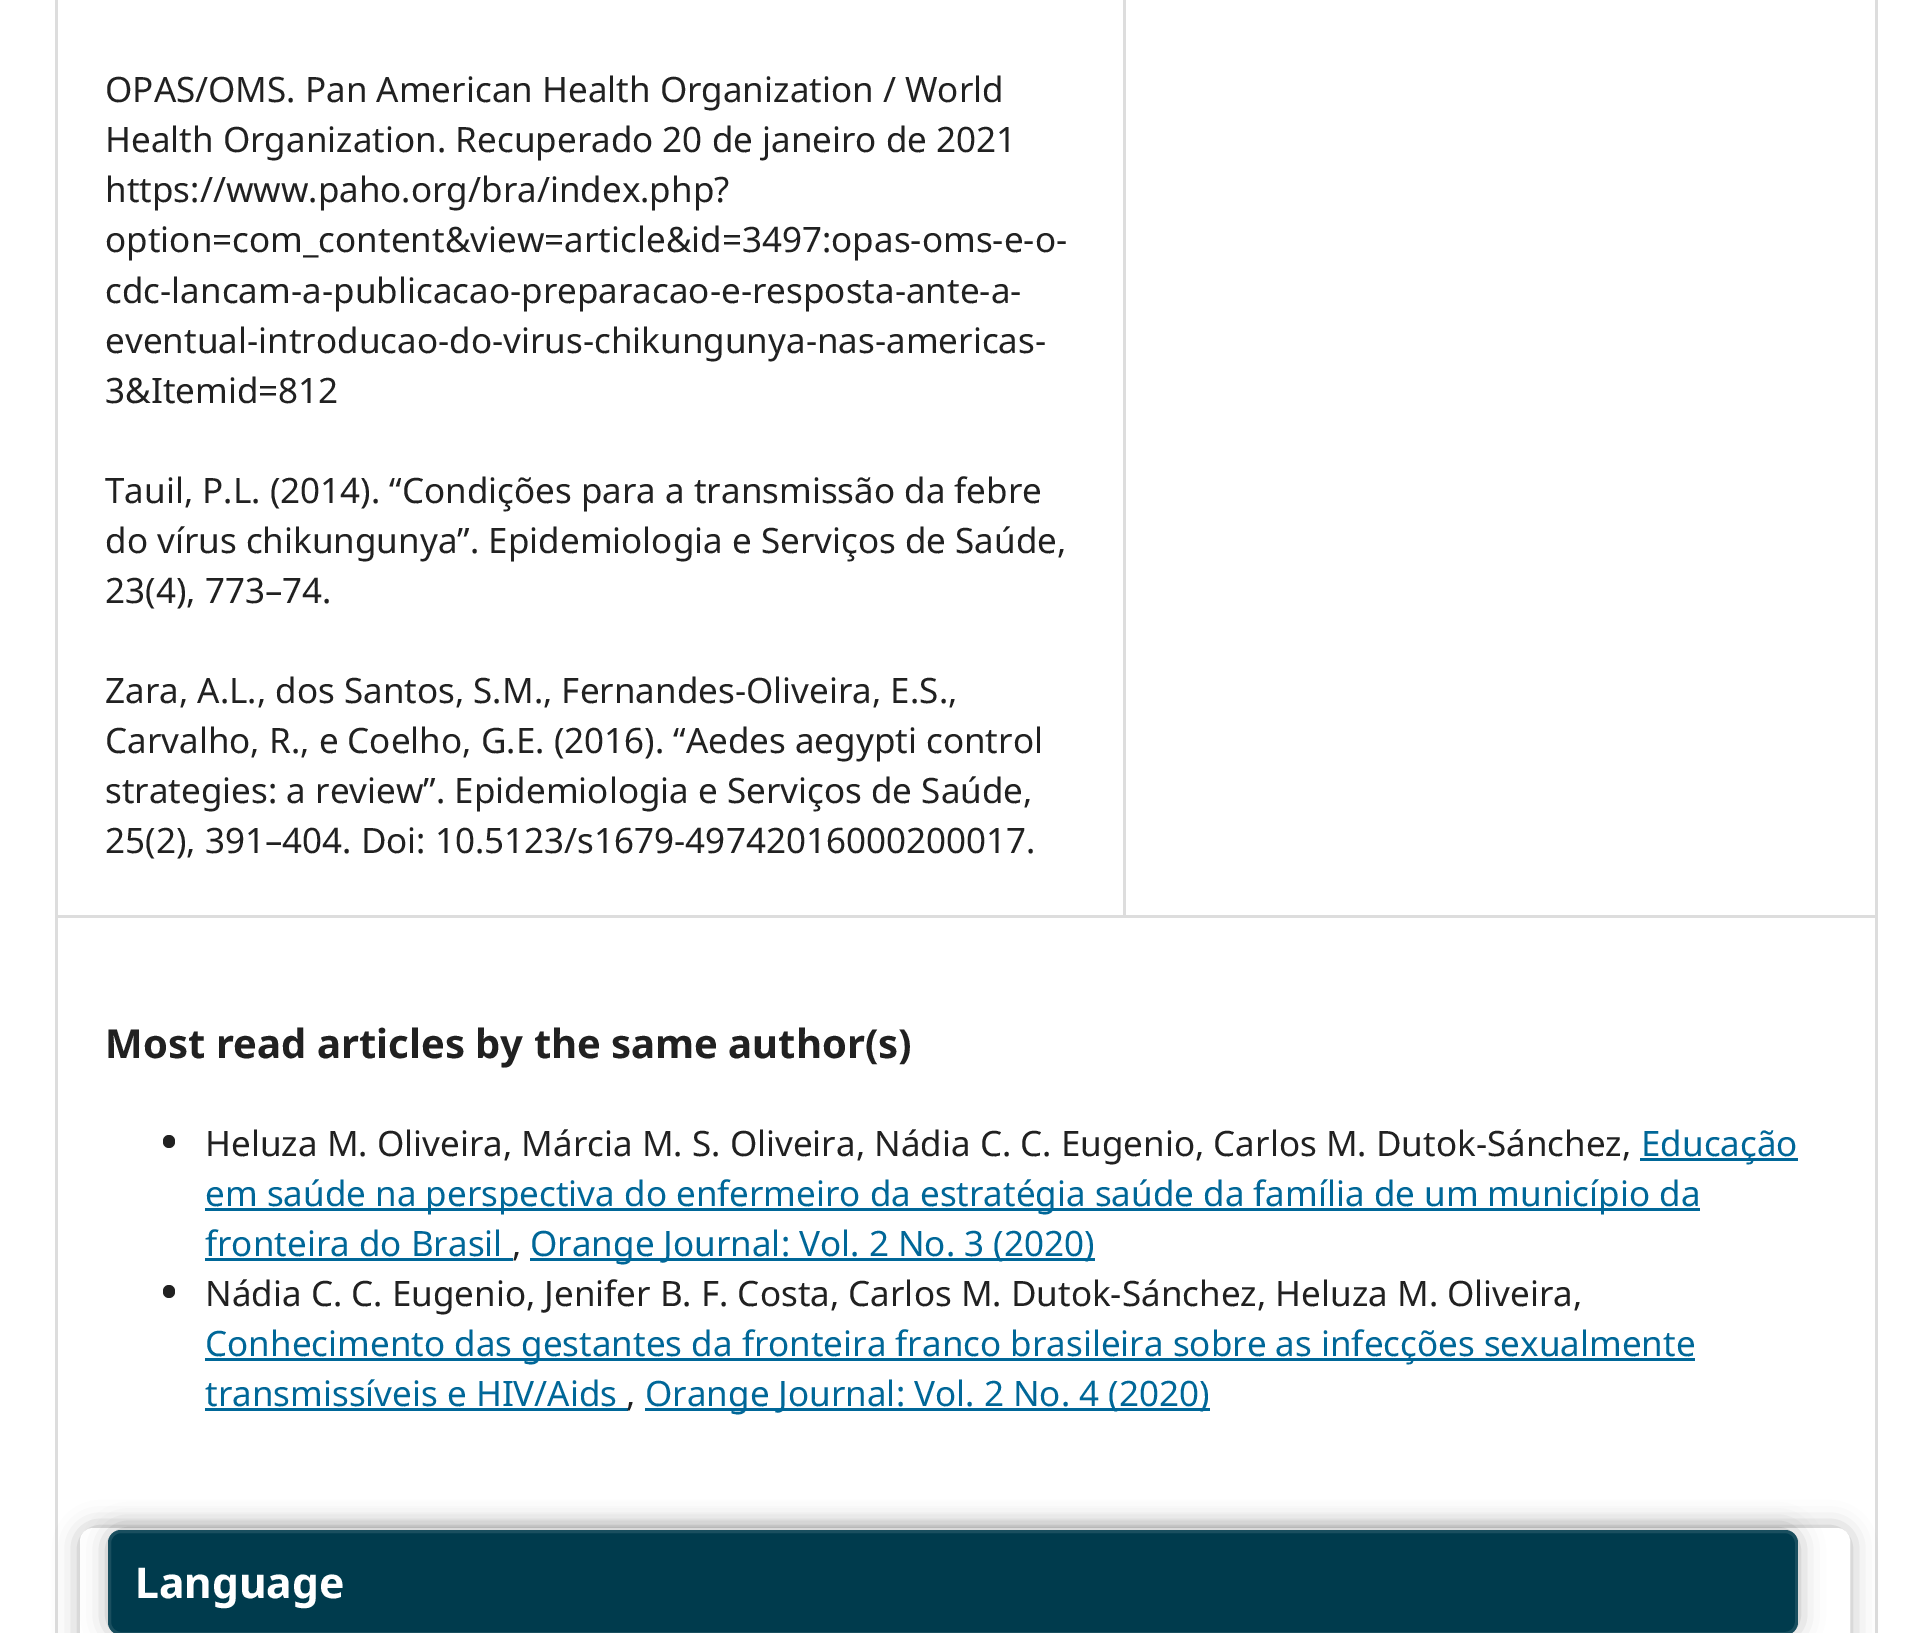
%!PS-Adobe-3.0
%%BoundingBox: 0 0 1928 1633
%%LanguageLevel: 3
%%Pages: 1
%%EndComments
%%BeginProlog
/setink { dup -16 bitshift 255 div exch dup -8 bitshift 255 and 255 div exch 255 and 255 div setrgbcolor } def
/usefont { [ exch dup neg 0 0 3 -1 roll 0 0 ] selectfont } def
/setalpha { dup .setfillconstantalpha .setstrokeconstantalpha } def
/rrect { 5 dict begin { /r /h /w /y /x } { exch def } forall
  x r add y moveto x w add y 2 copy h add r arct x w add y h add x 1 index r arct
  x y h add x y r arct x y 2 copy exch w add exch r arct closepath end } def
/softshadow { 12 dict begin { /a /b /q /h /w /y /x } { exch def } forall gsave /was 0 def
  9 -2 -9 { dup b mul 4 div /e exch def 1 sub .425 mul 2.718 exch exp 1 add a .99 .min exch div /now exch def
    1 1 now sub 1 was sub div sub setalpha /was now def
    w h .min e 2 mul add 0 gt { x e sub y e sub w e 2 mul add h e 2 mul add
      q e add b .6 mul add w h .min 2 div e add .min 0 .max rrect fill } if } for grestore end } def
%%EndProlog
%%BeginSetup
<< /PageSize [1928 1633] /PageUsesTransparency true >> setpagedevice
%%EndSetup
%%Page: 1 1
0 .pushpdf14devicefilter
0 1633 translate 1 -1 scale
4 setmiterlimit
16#FFFFFF setink
0 0 1928 1633 rectfill
[
    [55 915 1820 3 16#DDDDDD]
    [55 0 3 1633 16#DDDDDD]
    [1123 0 3 915 16#DDDDDD]
] { aload pop setink rectfill } forall
/NotoSans-Regular 35 usefont
16#212121 setink
[
    [(OPAS/OMS. Pan American Health Organization / World) 105 102]
    [(Health Organization. Recuperado 20 de janeiro de 2021) 105 152]
    [(https://www.paho.org/bra/index.php?) 105 202]
    [(option=com_content&view=article&id=3497:opas-oms-e-o-) 105 252]
    [(cdc-lancam-a-publicacao-preparacao-e-resposta-ante-a-) 105 303]
    [(eventual-introducao-do-virus-chikungunya-nas-americas-) 105 353]
    [(3&Itemid=812) 105 403]
    [(Tauil, P.L. \(2014\). “Condições para a transmissão da febre) 105 503]
    [(do vírus chikungunya”. Epidemiologia e Serviços de Saúde,) 105 553]
    [(23\(4\), 773–74.) 105 603]
    [(Zara, A.L., dos Santos, S.M., Fernandes-Oliveira, E.S.,) 105 703]
    [(Carvalho, R., e Coelho, G.E. \(2016\). “Aedes aegypti control) 105 753]
    [(strategies: a review”. Epidemiologia e Serviços de Saúde,) 105 803]
    [(25\(2\), 391–404. Doi: 10.5123/s1679-49742016000200017.) 105 853]
] { aload pop moveto show } forall
/NotoSans-Bold 40 usefont
105 1058 moveto (Most read articles by the same author\(s\)) show
163 1135 12 13 6 rrect fill
/NotoSans-Regular 35 usefont
205 1156 moveto (Heluza M. Oliveira, Márcia M. S. Oliveira, Nádia C. C. Eugenio, Carlos M. Dutok-Sánchez,) show
16#006798 setink
1640 1158 158 3 rectfill
1641 1156 moveto (Educação) show
205 1208 1495 3 rectfill
205 1206 moveto (em saúde na perspectiva do enfermeiro da estratégia saúde da família de um município da) show
205 1256 moveto (fronteira do Brasil) show
205 1258 308 3 rectfill
16#212121 setink
512 1256 moveto (,) show
16#006798 setink
530 1258 565 3 rectfill
530 1256 moveto (Orange Journal: Vol. 2 No. 3 \(2020\)) show
16#212121 setink
163 1285 12 13 6 rrect fill
205 1306 moveto (Nádia C. C. Eugenio, Jenifer B. F. Costa, Carlos M. Dutok-Sánchez, Heluza M. Oliveira,) show
16#006798 setink
205 1358 1490 3 rectfill
205 1356 moveto (Conhecimento das gestantes da fronteira franco brasileira sobre as infecções sexualmente) show
205 1406 moveto (transmissíveis e HIV/Aids) show
205 1408 423 3 rectfill
16#212121 setink
626 1406 moveto (,) show
16#006798 setink
645 1408 565 3 rectfill
645 1406 moveto (Orange Journal: Vol. 2 No. 4 \(2020\)) show
16#DDDDDD setink
1875 0 3 1633 rectfill
16#000000 setink
80 1528 1770 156 13 12.5 0.3 softshadow
16#FFFFFF setink
81.5 1529.5 1767 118 11.5 rrect gsave fill grestore
3 setlinewidth
stroke
16#000000 setink
108 1530 1690 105 13 12.5 0.3 softshadow
16#003B4D setink
108 1530 1690 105 13 rrect fill
0.1 setalpha
16#FFFFFF setink
109.5 1531.5 1687 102 11.5 rrect stroke
/NotoSans-Bold 42.5 usefont
1 setalpha
135 1598 moveto (Language) show
.poppdf14devicefilter showpage
%%EOF
